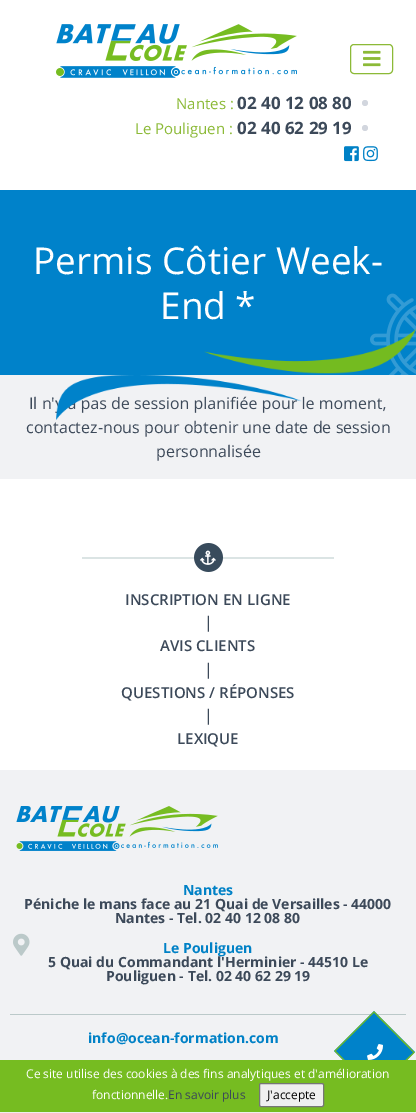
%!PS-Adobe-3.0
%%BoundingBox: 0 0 416 1113
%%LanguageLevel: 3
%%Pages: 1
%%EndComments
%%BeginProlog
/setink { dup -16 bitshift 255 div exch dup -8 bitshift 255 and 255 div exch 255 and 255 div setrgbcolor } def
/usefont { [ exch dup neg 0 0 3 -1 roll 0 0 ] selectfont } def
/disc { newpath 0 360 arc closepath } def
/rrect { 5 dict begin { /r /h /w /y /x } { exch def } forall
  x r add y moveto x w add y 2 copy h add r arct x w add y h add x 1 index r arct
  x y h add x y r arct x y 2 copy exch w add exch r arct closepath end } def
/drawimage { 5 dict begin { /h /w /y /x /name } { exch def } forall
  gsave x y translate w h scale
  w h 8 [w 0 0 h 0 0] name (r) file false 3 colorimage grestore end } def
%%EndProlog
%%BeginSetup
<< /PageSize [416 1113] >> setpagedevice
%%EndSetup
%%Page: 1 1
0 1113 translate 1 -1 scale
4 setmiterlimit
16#FFFFFF setink
0 0 416 1113 rectfill
(img1.raw) 56 24 241 54 drawimage
16#8CBA37 setink
350.5 44.5 42 29 3.5 rrect stroke
(img2.raw) 363 50 18 17 drawimage
/OpenSans-Regular 15 usefont
176 109 moveto (Nantes :) show
/OpenSans-Bold 17 usefont
16#3C4959 setink
237 109 moveto (02 40 12 08 80) show
16#D2D6DE setink
365 103 3 disc fill
/OpenSans-Regular 15 usefont
16#8CBA37 setink
135 134 moveto (Le Pouliguen :) show
/OpenSans-Bold 17 usefont
16#3C4959 setink
237 134 moveto (02 40 62 29 19) show
16#D2D6DE setink
365 128 3 disc fill
(img3.raw) 344 146 15 16 drawimage
(img4.raw) 363 146 15 16 drawimage
16#0082CA setink
0 190 416 185 rectfill
/OpenSans-Regular 37 usefont
16#FFFFFF setink
33 274 moveto (Permis Côtier Week-) show
160 319 moveto (End *) show
(img5.raw) 370 293 46 82 drawimage
16#F1F2F4 setink
0 375 416 104 rectfill
/OpenSans-Regular 16 usefont
16#3C4959 setink
29 409 moveto (Il n'y a pas de session planifiée pour le moment,) show
(img6.raw) 56 329 360 91 drawimage
26 433 moveto (contactez-nous pour obtenir une date de session) show
156 457 moveto (personnalisée) show
(img7.raw) 82 543 252 29 drawimage
/OpenSans-SemiBold 15 usefont
125 605 moveto (INSCRIPTION EN LIGNE) show
/OpenSans-Regular 16 usefont
204 628 moveto (|) show
/OpenSans-SemiBold 15 usefont
160 651 moveto (AVIS CLIENTS) show
/OpenSans-Regular 16 usefont
204 675 moveto (|) show
/OpenSans-SemiBold 15 usefont
121 698 moveto (QUESTIONS / RÉPONSES) show
/OpenSans-Regular 16 usefont
204 721 moveto (|) show
/OpenSans-SemiBold 15 usefont
177 744 moveto (LEXIQUE) show
16#F1F2F4 setink
0 770 416 290 rectfill
(img8.raw) 16 806 202 45 drawimage
/OpenSans-Bold 14 usefont
16#0081C6 setink
183 895 moveto (Nantes) show
16#3C4959 setink
24 909 moveto (Péniche le mans face au 21 Quai de Versailles - 44000) show
115 923 moveto (Nantes - Tel. 02 40 12 08 80) show
(img9.raw) 13 933 17 23 drawimage
16#0081C6 setink
163 953 moveto (Le Pouliguen) show
16#3C4959 setink
48 967 moveto (5 Quai du Commandant l'Herminier - 44510 Le) show
106 981 moveto (Pouliguen - Tel. 02 40 62 29 19) show
16#BBC9C9 setink
10 1014 396 1 rectfill
16#0081C6 setink
88 1043 moveto (info@ocean-formation.com) show
16#0082CA setink
374 1011 moveto 415 1052 lineto 375 1092 lineto 334 1051 lineto closepath fill
16#74BB20 setink
374 1012 moveto 414 1052.5 lineto 375 1091 lineto 335 1051 lineto closepath stroke
(img10.raw) 367 1044 16 16 drawimage
16#76BC21 setink
0 1060 416 52 rectfill
16#EEEEEE setink
0 1112 416 1 rectfill
/OpenSans-Regular 12 usefont
16#FFFFFF setink
26 1078 moveto (Ce site utilise des cookies à des fins analytiques et d'amélioration) show
92 1099 moveto (fonctionnelle.) show
16#3C4959 setink
168 1099 moveto (En savoir plus) show
16#EFEFEF setink
259.5 1083.5 64 23 1.5 rrect gsave fill grestore
16#767676 setink
stroke
16#000000 setink
267 1099 moveto (J'accepte) show
showpage
%%EOF
